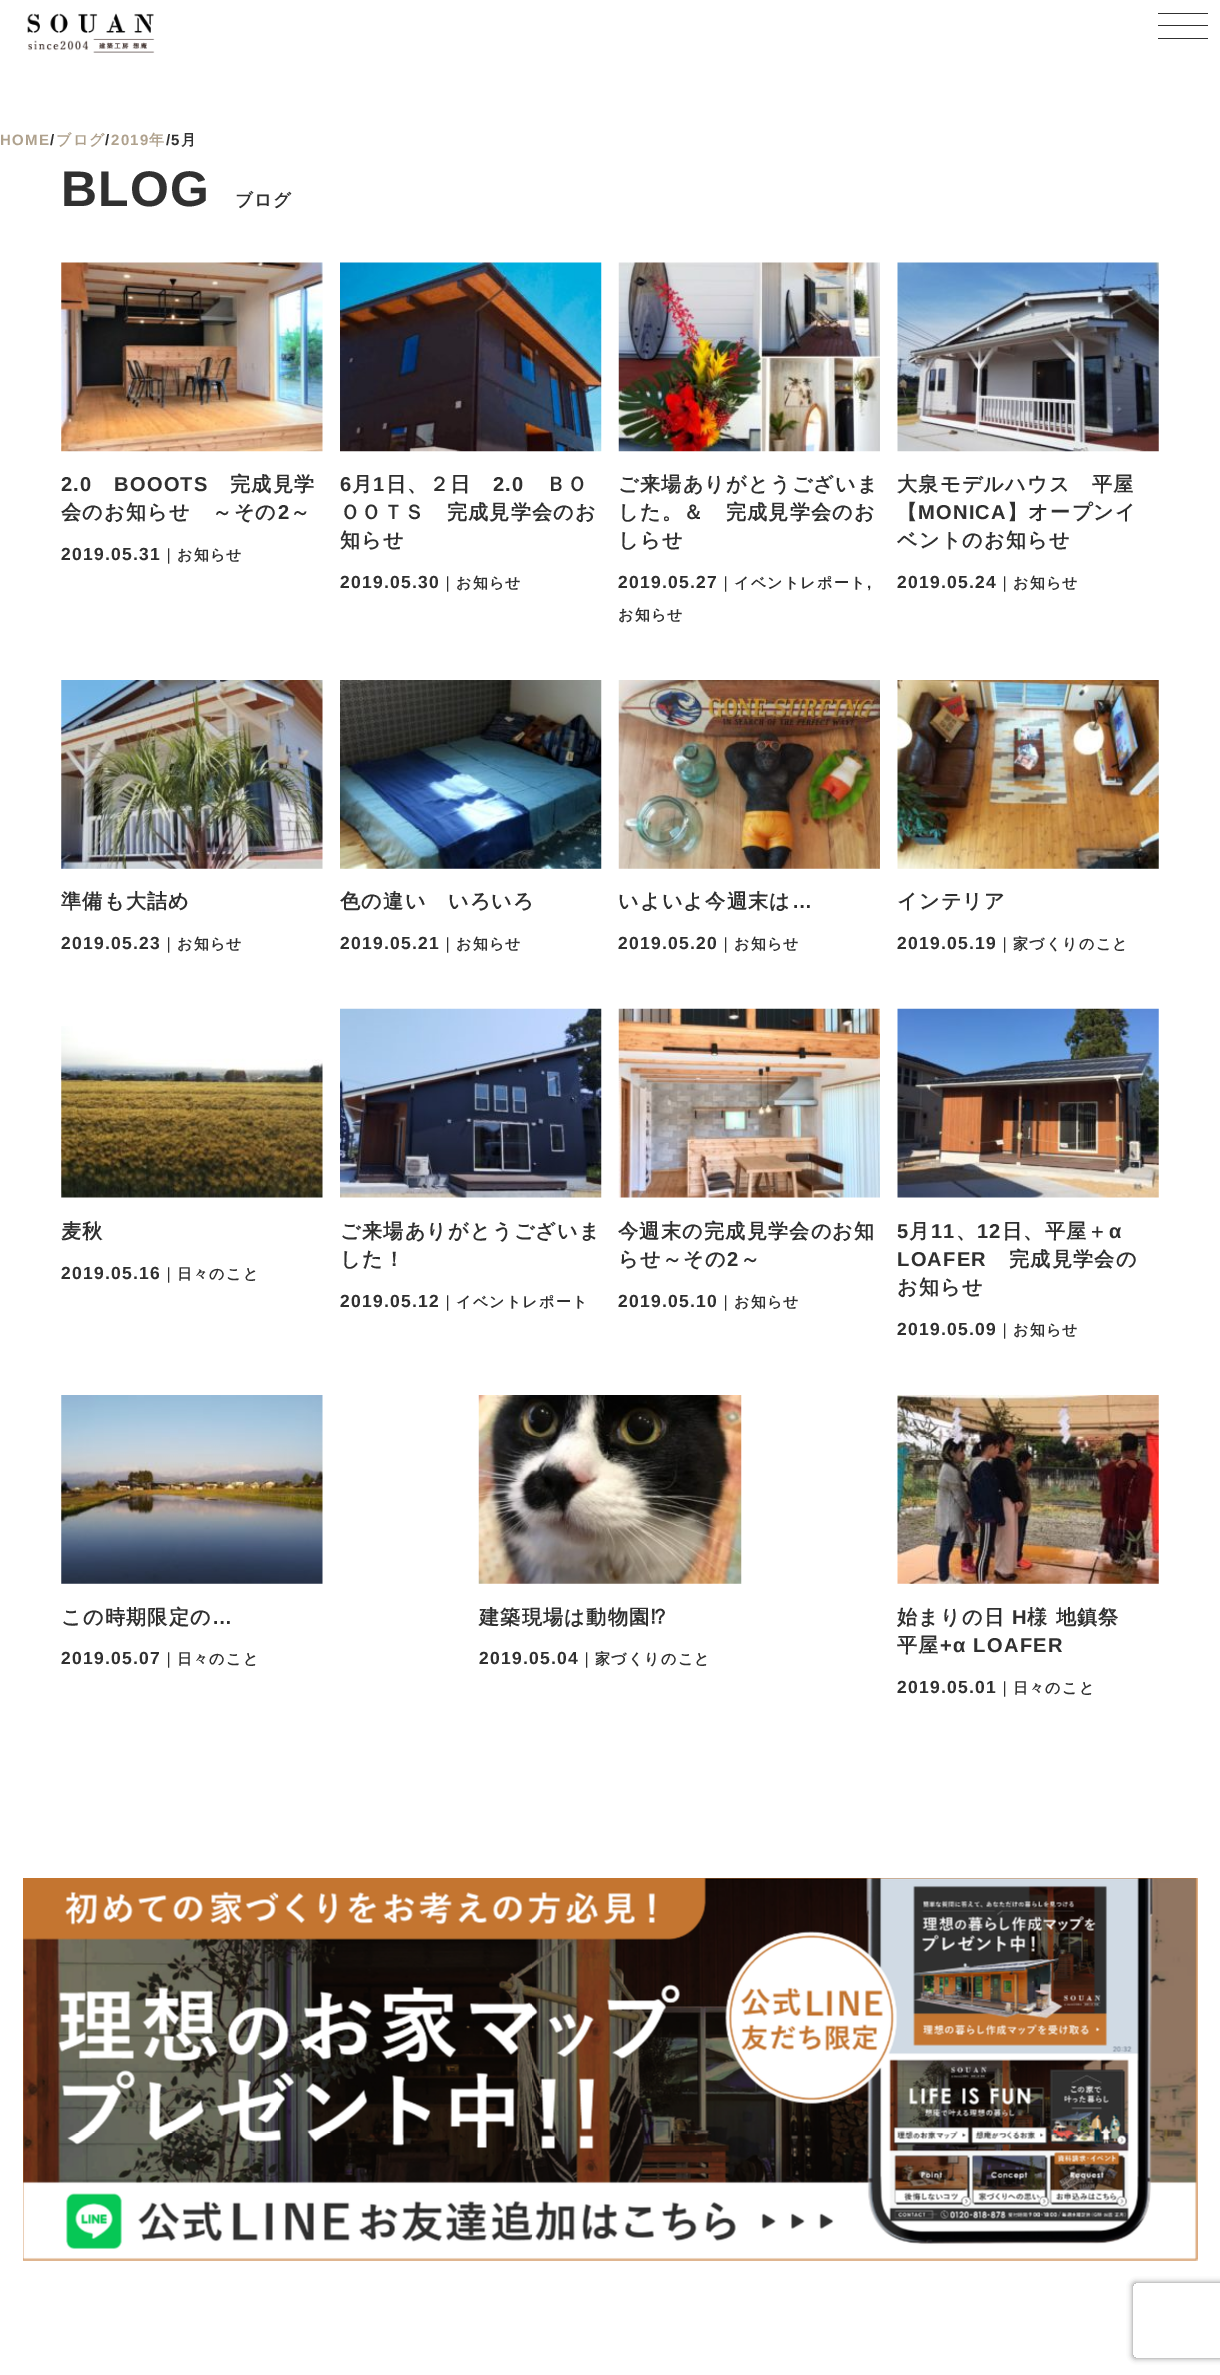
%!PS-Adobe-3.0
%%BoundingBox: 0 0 1220 2375
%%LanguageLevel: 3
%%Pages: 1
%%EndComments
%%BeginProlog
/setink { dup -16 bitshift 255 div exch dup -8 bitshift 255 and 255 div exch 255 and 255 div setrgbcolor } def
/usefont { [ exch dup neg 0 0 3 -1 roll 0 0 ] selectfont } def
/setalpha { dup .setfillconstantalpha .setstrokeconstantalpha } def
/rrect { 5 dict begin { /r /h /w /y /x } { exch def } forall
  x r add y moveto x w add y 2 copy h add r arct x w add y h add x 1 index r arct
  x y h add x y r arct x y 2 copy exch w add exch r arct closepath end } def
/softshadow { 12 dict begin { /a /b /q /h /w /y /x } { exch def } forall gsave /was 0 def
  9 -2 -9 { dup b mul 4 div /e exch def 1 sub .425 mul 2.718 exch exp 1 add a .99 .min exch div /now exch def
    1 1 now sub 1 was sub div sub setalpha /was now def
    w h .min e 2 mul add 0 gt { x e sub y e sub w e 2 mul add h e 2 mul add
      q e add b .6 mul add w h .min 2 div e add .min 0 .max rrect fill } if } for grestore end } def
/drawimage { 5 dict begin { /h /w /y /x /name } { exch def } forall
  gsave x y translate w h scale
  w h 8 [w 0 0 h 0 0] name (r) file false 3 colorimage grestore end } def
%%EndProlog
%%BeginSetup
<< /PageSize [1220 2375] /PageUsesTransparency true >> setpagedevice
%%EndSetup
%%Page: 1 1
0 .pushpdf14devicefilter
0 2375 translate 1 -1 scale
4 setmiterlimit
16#FFFFFF setink
0 0 1220 2375 rectfill
(img1.raw) 27 13 128 40 drawimage
[
    [1158 13 50 1 16#303030]
    [1158 25 50 1 16#303030]
    [1158 38 50 1 16#303030]
] { aload pop setink rectfill } forall
/LiberationSans-Bold 15 usefont
16#AFA18D setink
0 145 moveto 1.25 0 (HOME) ashow
16#303030 setink
50 145 moveto 1.25 0 (/) ashow
/WenQuanYiZenHei-Bold 15 usefont
16#AFA18D setink
56 145 moveto 1.25 0 (ブログ) ashow
/LiberationSans-Bold 15 usefont
16#303030 setink
105 145 moveto 1.25 0 (/) ashow
16#AFA18D setink
111 145 moveto 1.25 0 (2019) ashow
/WenQuanYiZenHei-Bold 15 usefont
149 145 moveto 1.25 0 (年) ashow
/LiberationSans-Bold 15 usefont
16#303030 setink
166 145 moveto 1.25 0 (/5) ashow
/WenQuanYiZenHei-Bold 15 usefont
181 145 moveto 1.25 0 (月) ashow
/LiberationSans-Bold 50 usefont
61 206 moveto 1.25 0 (BLOG) ashow
/WenQuanYiZenHei-Bold 17.5 usefont
235 206 moveto 1.25 0 (ブログ) ashow
(img2.raw) 61 262 262 190 drawimage
/LiberationSans-Bold 20.1 usefont
61 491 moveto 1.25 0 (2.0) ashow
114 491 moveto 1.25 0 (BOOOTS) ashow
/WenQuanYiZenHei-Bold 20.1 usefont
230 491 moveto 1.25 0 (完成見学) ashow
61 519 moveto 1.25 0 (会のお知らせ　～その) ashow
/LiberationSans-Bold 20.1 usefont
278 519 moveto 1.25 0 (2) ashow
/WenQuanYiZenHei-Bold 20.1 usefont
290 519 moveto 1.25 0 (～) ashow
/LiberationSans-Bold 17.5 usefont
61 560 moveto 1.25 0 (2019.05.31) ashow
/WenQuanYiZenHei-Bold 15 usefont
161 560 moveto 1.25 0 (｜お知らせ) ashow
(img3.raw) 340 262 262 190 drawimage
/LiberationSans-Bold 20.1 usefont
340 491 moveto 1.25 0 (6) ashow
/WenQuanYiZenHei-Bold 20.1 usefont
352 491 moveto 1.25 0 (月) ashow
/LiberationSans-Bold 20.1 usefont
373 491 moveto 1.25 0 (1) ashow
/WenQuanYiZenHei-Bold 20.1 usefont
386 491 moveto 1.25 0 (日、２日) ashow
/LiberationSans-Bold 20.1 usefont
493 491 moveto 1.25 0 (2.0) ashow
/WenQuanYiZenHei-Bold 20.1 usefont
546 491 moveto 1.25 0 (ＢＯ) ashow
340 519 moveto 1.25 0 (ＯＯＴＳ　完成見学会のお) ashow
340 547 moveto 1.25 0 (知らせ) ashow
/LiberationSans-Bold 17.5 usefont
340 588 moveto 1.25 0 (2019.05.30) ashow
/WenQuanYiZenHei-Bold 15 usefont
440 588 moveto 1.25 0 (｜お知らせ) ashow
(img4.raw) 618 262 262 190 drawimage
/WenQuanYiZenHei-Bold 20.1 usefont
618 491 moveto 1.25 0 (ご来場ありがとうございま) ashow
618 519 moveto 1.25 0 (した。＆　完成見学会のお) ashow
618 547 moveto 1.25 0 (しらせ) ashow
/LiberationSans-Bold 17.5 usefont
618 588 moveto 1.25 0 (2019.05.27) ashow
/WenQuanYiZenHei-Bold 15 usefont
718 588 moveto 1.25 0 (｜イベントレポート) ashow
/LiberationSans-Bold 15 usefont
867 588 moveto 1.25 0 (,) ashow
/WenQuanYiZenHei-Bold 15 usefont
618 620 moveto 1.25 0 (お知らせ) ashow
(img5.raw) 897 262 262 190 drawimage
/WenQuanYiZenHei-Bold 20.1 usefont
897 491 moveto 1.25 0 (大泉モデルハウス　平屋) ashow
897 519 moveto 1.25 0 (【) ashow
/LiberationSans-Bold 20.1 usefont
918 519 moveto 1.25 0 (MONICA) ashow
/WenQuanYiZenHei-Bold 20.1 usefont
1007 519 moveto 1.25 0 (】オープンイ) ashow
897 547 moveto 1.25 0 (ベントのお知らせ) ashow
/LiberationSans-Bold 17.5 usefont
897 588 moveto 1.25 0 (2019.05.24) ashow
/WenQuanYiZenHei-Bold 15 usefont
997 588 moveto 1.25 0 (｜お知らせ) ashow
(img6.raw) 61 680 262 189 drawimage
/WenQuanYiZenHei-Bold 20.1 usefont
61 908 moveto 1.25 0 (準備も大詰め) ashow
/LiberationSans-Bold 17.5 usefont
61 949 moveto 1.25 0 (2019.05.23) ashow
/WenQuanYiZenHei-Bold 15 usefont
161 949 moveto 1.25 0 (｜お知らせ) ashow
(img7.raw) 340 680 262 189 drawimage
/WenQuanYiZenHei-Bold 20.1 usefont
340 908 moveto 1.25 0 (色の違い　いろいろ) ashow
/LiberationSans-Bold 17.5 usefont
340 949 moveto 1.25 0 (2019.05.21) ashow
/WenQuanYiZenHei-Bold 15 usefont
440 949 moveto 1.25 0 (｜お知らせ) ashow
(img8.raw) 618 680 262 189 drawimage
/WenQuanYiZenHei-Bold 20.1 usefont
618 908 moveto 1.25 0 (いよいよ今週末は) ashow
/LiberationSans-Bold 20.1 usefont
792 908 moveto 1.25 0 (…) ashow
/LiberationSans-Bold 17.5 usefont
618 949 moveto 1.25 0 (2019.05.20) ashow
/WenQuanYiZenHei-Bold 15 usefont
718 949 moveto 1.25 0 (｜お知らせ) ashow
(img9.raw) 897 680 262 189 drawimage
/WenQuanYiZenHei-Bold 20.1 usefont
897 908 moveto 1.25 0 (インテリア) ashow
/LiberationSans-Bold 17.5 usefont
897 949 moveto 1.25 0 (2019.05.19) ashow
/WenQuanYiZenHei-Bold 15 usefont
997 949 moveto 1.25 0 (｜家づくりのこと) ashow
(img10.raw) 61 1026 262 172 drawimage
/WenQuanYiZenHei-Bold 20.1 usefont
61 1238 moveto 1.25 0 (麦秋) ashow
/LiberationSans-Bold 17.5 usefont
61 1279 moveto 1.25 0 (2019.05.16) ashow
/WenQuanYiZenHei-Bold 15 usefont
161 1279 moveto 1.25 0 (｜日々のこと) ashow
(img11.raw) 340 1008 262 190 drawimage
/WenQuanYiZenHei-Bold 20.1 usefont
340 1238 moveto 1.25 0 (ご来場ありがとうございま) ashow
340 1266 moveto 1.25 0 (した！) ashow
/LiberationSans-Bold 17.5 usefont
340 1307 moveto 1.25 0 (2019.05.12) ashow
/WenQuanYiZenHei-Bold 15 usefont
440 1307 moveto 1.25 0 (｜イベントレポート) ashow
(img12.raw) 618 1008 262 190 drawimage
/WenQuanYiZenHei-Bold 20.1 usefont
618 1238 moveto 1.25 0 (今週末の完成見学会のお知) ashow
618 1266 moveto 1.25 0 (らせ～その) ashow
/LiberationSans-Bold 20.1 usefont
727 1266 moveto 1.25 0 (2) ashow
/WenQuanYiZenHei-Bold 20.1 usefont
740 1266 moveto 1.25 0 (～) ashow
/LiberationSans-Bold 17.5 usefont
618 1307 moveto 1.25 0 (2019.05.10) ashow
/WenQuanYiZenHei-Bold 15 usefont
718 1307 moveto 1.25 0 (｜お知らせ) ashow
(img13.raw) 897 1008 262 190 drawimage
/LiberationSans-Bold 20.1 usefont
897 1238 moveto 1.25 0 (5) ashow
/WenQuanYiZenHei-Bold 20.1 usefont
909 1238 moveto 1.25 0 (月) ashow
/LiberationSans-Bold 20.1 usefont
931 1238 moveto 1.25 0 (11) ashow
/WenQuanYiZenHei-Bold 20.1 usefont
956 1238 moveto 1.25 0 (、) ashow
/LiberationSans-Bold 20.1 usefont
977 1238 moveto 1.25 0 (12) ashow
/WenQuanYiZenHei-Bold 20.1 usefont
1002 1238 moveto 1.25 0 (日、平屋＋) ashow
/LiberationSans-Bold 20.1 usefont
1109 1238 moveto 1.25 0 (α) ashow
897 1266 moveto 1.25 0 (LOAFER) ashow
/WenQuanYiZenHei-Bold 20.1 usefont
1009 1266 moveto 1.25 0 (完成見学会の) ashow
897 1294 moveto 1.25 0 (お知らせ) ashow
/LiberationSans-Bold 17.5 usefont
897 1335 moveto 1.25 0 (2019.05.09) ashow
/WenQuanYiZenHei-Bold 15 usefont
997 1335 moveto 1.25 0 (｜お知らせ) ashow
(img14.raw) 61 1395 262 189 drawimage
/WenQuanYiZenHei-Bold 20.1 usefont
61 1624 moveto 1.25 0 (この時期限定の) ashow
/LiberationSans-Bold 20.1 usefont
212 1624 moveto 1.25 0 (…) ashow
/LiberationSans-Bold 17.5 usefont
61 1664 moveto 1.25 0 (2019.05.07) ashow
/WenQuanYiZenHei-Bold 15 usefont
161 1664 moveto 1.25 0 (｜日々のこと) ashow
(img15.raw) 478 1395 264 189 drawimage
/WenQuanYiZenHei-Bold 20.1 usefont
479 1624 moveto 1.25 0 (建築現場は動物園) ashow
/IPAPGothic-Bold 20.1 usefont
650 1624 moveto 1.25 0 (⁉) ashow
/LiberationSans-Bold 17.5 usefont
479 1664 moveto 1.25 0 (2019.05.04) ashow
/WenQuanYiZenHei-Bold 15 usefont
579 1664 moveto 1.25 0 (｜家づくりのこと) ashow
(img16.raw) 897 1395 262 189 drawimage
/WenQuanYiZenHei-Bold 20.1 usefont
897 1624 moveto 1.25 0 (始まりの日) ashow
/LiberationSans-Bold 20.1 usefont
1012 1624 moveto 1.25 0 (H) ashow
/WenQuanYiZenHei-Bold 20.1 usefont
1027 1624 moveto 1.25 0 (様 地鎮祭) ashow
897 1652 moveto 1.25 0 (平屋) ashow
/LiberationSans-Bold 20.1 usefont
940 1652 moveto 1.25 0 (+α LOAFER) ashow
/LiberationSans-Bold 17.5 usefont
897 1693 moveto 1.25 0 (2019.05.01) ashow
/WenQuanYiZenHei-Bold 15 usefont
997 1693 moveto 1.25 0 (｜日々のこと) ashow
(img17.raw) 23 1878 1175 383 drawimage
gsave
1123 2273 moveto 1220 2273 lineto 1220 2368 lineto 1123 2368 lineto closepath 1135.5 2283 moveto 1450.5 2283 lineto 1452 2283 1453 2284 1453 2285.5 curveto 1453 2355.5 lineto 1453 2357 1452 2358 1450.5 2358 curveto 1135.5 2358 lineto 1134 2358 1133 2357 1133 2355.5 curveto 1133 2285.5 lineto 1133 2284 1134 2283 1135.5 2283 curveto closepath eoclip newpath
16#808080 setink
1133 2283 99 75 2.5 3 1 softshadow
grestore
.poppdf14devicefilter showpage
%%EOF
